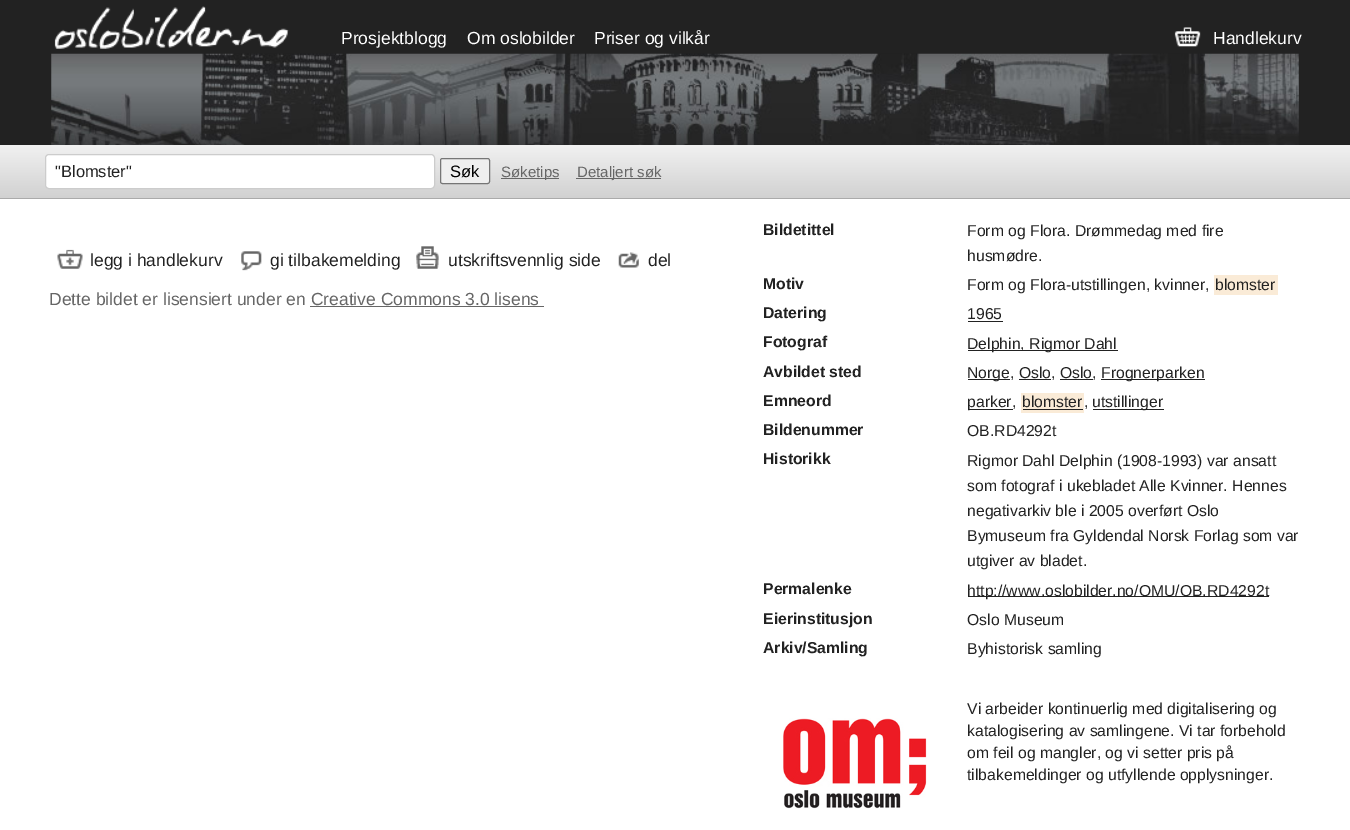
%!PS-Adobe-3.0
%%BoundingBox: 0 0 1350 830
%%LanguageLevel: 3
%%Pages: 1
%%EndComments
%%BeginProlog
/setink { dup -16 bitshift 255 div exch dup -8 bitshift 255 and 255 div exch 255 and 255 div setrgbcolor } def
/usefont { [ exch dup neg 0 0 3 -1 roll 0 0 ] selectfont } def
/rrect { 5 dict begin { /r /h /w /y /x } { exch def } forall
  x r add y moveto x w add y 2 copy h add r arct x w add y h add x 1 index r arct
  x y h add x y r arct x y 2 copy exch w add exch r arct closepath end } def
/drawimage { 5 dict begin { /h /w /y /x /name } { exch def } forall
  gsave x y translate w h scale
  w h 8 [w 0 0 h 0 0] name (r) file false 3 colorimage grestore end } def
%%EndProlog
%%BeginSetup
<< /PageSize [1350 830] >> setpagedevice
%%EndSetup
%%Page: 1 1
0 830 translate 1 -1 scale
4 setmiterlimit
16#FFFFFF setink
0 0 1350 830 rectfill
16#222222 setink
0 0 1350 145 rectfill
(img1.raw) 51 53 1248 92 drawimage
(img2.raw) 54 6 235 43 drawimage
/LiberationSans-Regular 17.5 usefont
16#FFFFFF setink
[
    [(Prosjektblogg) 341 44]
    [(Om oslobilder) 467 44]
    [(Priser og vilkår) 594 44]
] { aload pop moveto show } forall
(img3.raw) 1174 27 27 20 drawimage
1213 44 moveto (Handlekurv) show
gsave 0 145 moveto 1350 145 lineto 1350 198 lineto 0 198 lineto closepath clip newpath
<< /ShadingType 2 /ColorSpace /DeviceRGB /Coords [675 145 675 198] /Extend [true true] /Function << /FunctionType 2 /Domain [0 1] /C0 [0.945 0.945 0.945] /C1 [0.82 0.82 0.82] /N 1 >> >> shfill grestore
16#AAAAAA setink
0 198 1350 1 rectfill
16#FFFFFF setink
45.5 154.5 389 34 3.5 rrect gsave fill grestore
16#CCCCCC setink
stroke
/LiberationSans-Regular 16.5 usefont
16#222222 setink
55 177 moveto ("Blomster") show
16#EFEFEF setink
440.5 158.5 49 25 2 rrect gsave fill grestore
16#767676 setink
stroke
16#000000 setink
450 177 moveto (Søk) show
16#666666 setink
501 178 58 1 rectfill
/LiberationSans-Regular 15 usefont
501 177 moveto (Søketips) show
576 178 85 1 rectfill
577 177 moveto (Detaljert søk) show
(img4.raw) 57 249 26 20 drawimage
/LiberationSans-Regular 17.5 usefont
16#222222 setink
90 266 moveto (legg i handlekurv) show
(img5.raw) 241 251 21 20 drawimage
270 266 moveto (gi tilbakemelding) show
(img6.raw) 416 246 23 23 drawimage
448 266 moveto (utskriftsvennlig side) show
(img7.raw) 618 252 21 16 drawimage
648 266 moveto (del) show
16#666666 setink
49 305 moveto (Dette bildet er lisensiert under en Creative Commons 3.0 lisens) show
310 306 234 1 rectfill
/LiberationSans-Bold 15.75 usefont
16#222222 setink
763 235 moveto (Bildetittel) show
/LiberationSans-Regular 15.75 usefont
967 236 moveto (Form og Flora. Drømmedag med fire) show
967 261 moveto (husmødre.) show
/LiberationSans-Bold 15.75 usefont
763 289 moveto (Motiv) show
/LiberationSans-Regular 15.75 usefont
967 290 moveto (Form og Flora-utstillingen, kvinner,) show
16#FAEBD7 setink
1214 275 64 20 rectfill
16#222222 setink
1215 290 moveto (blomster) show
/LiberationSans-Bold 15.75 usefont
763 318 moveto (Datering) show
/LiberationSans-Regular 15.75 usefont
967 319 moveto (1965) show
968 321 35 1 rectfill
/LiberationSans-Bold 15.75 usefont
763 347 moveto (Fotograf) show
968 350 150 1 rectfill
/LiberationSans-Regular 15.75 usefont
967 349 moveto (Delphin, Rigmor Dahl) show
/LiberationSans-Bold 15.75 usefont
763 377 moveto (Avbildet sted) show
968 379 42 1 rectfill
/LiberationSans-Regular 15.75 usefont
967 378 moveto (Norge, Oslo, Oslo,) show
1101 379 104 1 rectfill
1101 378 moveto (Frognerparken) show
1019 379 32 1 rectfill
1060 379 33 1 rectfill
/LiberationSans-Bold 15.75 usefont
763 406 moveto (Emneord) show
968 409 45 1 rectfill
/LiberationSans-Regular 15.75 usefont
967 407 moveto (parker,) show
16#FAEBD7 setink
1021 393 63 20 rectfill
16#222222 setink
1022 407 moveto (blomster) show
1023 409 60 1 rectfill
1084 407 moveto (,) show
1093 409 71 1 rectfill
1092 407 moveto (utstillinger) show
/LiberationSans-Bold 15.75 usefont
763 435 moveto (Bildenummer) show
/LiberationSans-Regular 15.75 usefont
967 436 moveto (OB.RD4292t) show
/LiberationSans-Bold 15.75 usefont
763 464 moveto (Historikk) show
/LiberationSans-Regular 15.75 usefont
[
    [(Rigmor Dahl Delphin \(1908-1993\) var ansatt) 967 466]
    [(som fotograf i ukebladet Alle Kvinner. Hennes) 967 491]
    [(negativarkiv ble i 2005 overført Oslo) 967 516]
    [(Bymuseum fra Gyldendal Norsk Forlag som var) 967 541]
    [(utgiver av bladet.) 967 566]
] { aload pop moveto show } forall
/LiberationSans-Bold 15.75 usefont
763 594 moveto (Permalenke) show
968 596 301 1 rectfill
/LiberationSans-Regular 15.75 usefont
967 596 moveto (http://www.oslobilder.no/OMU/OB.RD4292t) show
/LiberationSans-Bold 15.75 usefont
763 624 moveto (Eierinstitusjon) show
/LiberationSans-Regular 15.75 usefont
967 625 moveto (Oslo Museum) show
/LiberationSans-Bold 15.75 usefont
763 653 moveto (Arkiv/Samling) show
/LiberationSans-Regular 15.75 usefont
967 654 moveto (Byhistorisk samling) show
(img8.raw) 783 718 144 91 drawimage
[
    [(Vi arbeider kontinuerlig med digitalisering og) 967 714]
    [(katalogisering av samlingene. Vi tar forbehold) 967 736]
    [(om feil og mangler, og vi setter pris på) 967 758]
    [(tilbakemeldinger og utfyllende opplysninger.) 967 780]
] { aload pop moveto show } forall
showpage
%%EOF
